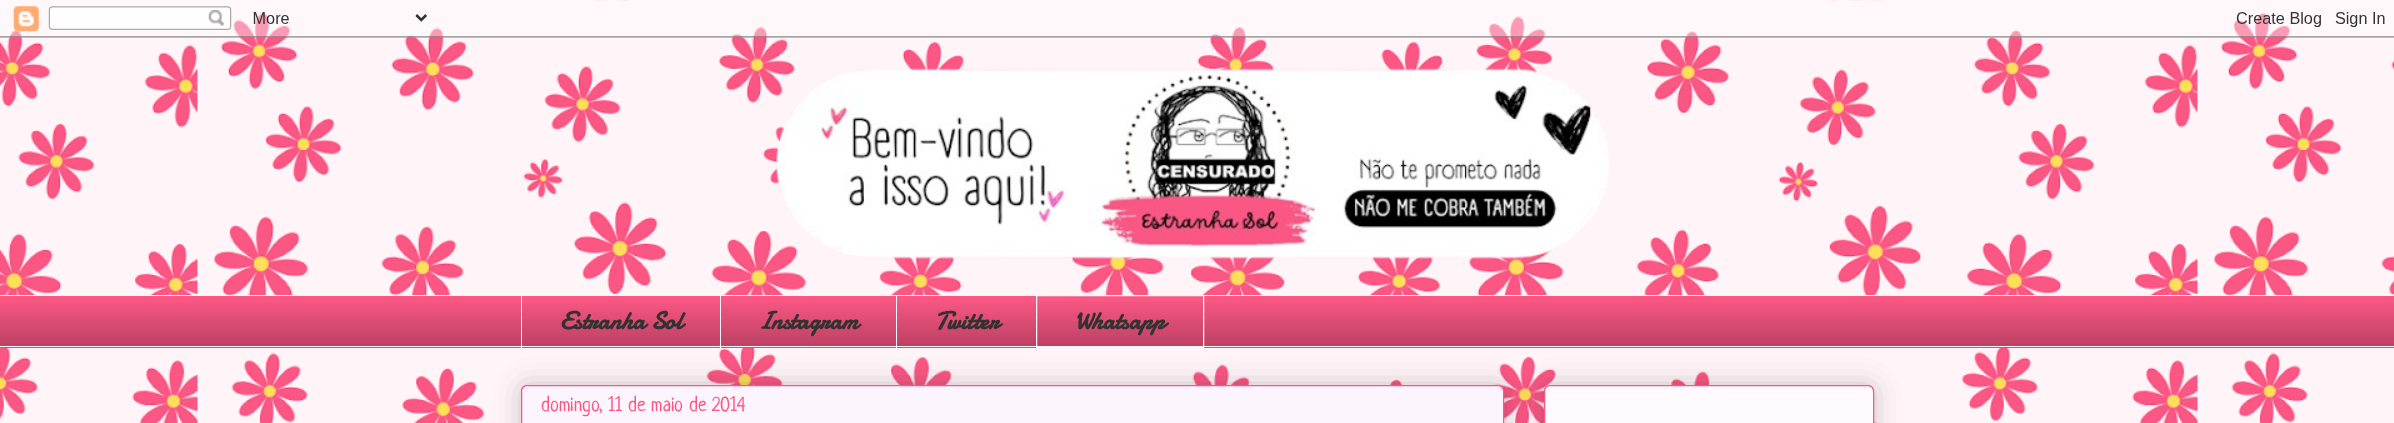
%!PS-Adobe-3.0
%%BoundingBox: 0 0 2394 423
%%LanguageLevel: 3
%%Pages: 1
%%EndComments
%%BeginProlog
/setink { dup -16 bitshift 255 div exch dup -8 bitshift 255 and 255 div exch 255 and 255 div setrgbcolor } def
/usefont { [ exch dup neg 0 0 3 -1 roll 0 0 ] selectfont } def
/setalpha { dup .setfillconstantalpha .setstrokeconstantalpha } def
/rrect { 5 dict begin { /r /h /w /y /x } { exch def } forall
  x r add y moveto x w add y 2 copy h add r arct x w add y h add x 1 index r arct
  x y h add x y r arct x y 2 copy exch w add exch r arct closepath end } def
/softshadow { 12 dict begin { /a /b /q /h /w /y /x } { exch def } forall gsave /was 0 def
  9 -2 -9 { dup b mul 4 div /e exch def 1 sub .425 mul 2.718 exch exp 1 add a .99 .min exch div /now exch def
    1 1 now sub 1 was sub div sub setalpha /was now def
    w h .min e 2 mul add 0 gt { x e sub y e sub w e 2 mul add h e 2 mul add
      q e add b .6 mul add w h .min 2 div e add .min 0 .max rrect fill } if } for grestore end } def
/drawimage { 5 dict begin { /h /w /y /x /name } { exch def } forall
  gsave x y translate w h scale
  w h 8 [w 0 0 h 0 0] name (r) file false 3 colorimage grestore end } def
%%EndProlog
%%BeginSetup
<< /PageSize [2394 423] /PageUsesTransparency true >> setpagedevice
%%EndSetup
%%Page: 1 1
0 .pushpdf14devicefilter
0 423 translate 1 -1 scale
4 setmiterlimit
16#FFFFFF setink
0 0 2394 423 rectfill
(img1.raw) 0 0 2394 423 drawimage
(img2.raw) 0 0 2394 38 drawimage
(img3.raw) 776 68 833 191 drawimage
16#FA5784 setink
0 296 2394 52 rectfill
(img4.raw) 0 302 2394 46 drawimage
16#FCF5FA setink
0 295 2394 1 rectfill
521 295 1 53 rectfill
/Damion-Bold 25 usefont
16#323232 setink
560 329 moveto (Estranha Sol) show
16#FCF5FA setink
720 295 1 53 rectfill
16#323232 setink
758 329 moveto (Instagram) show
16#FCF5FA setink
896 295 1 53 rectfill
16#323232 setink
935 329 moveto (Twitter) show
16#FCF5FA setink
1036.5 295.5 167 52 rectstroke
16#323232 setink
1075 329 moveto (Whatsapp) show
16#FCF5FA setink
0 346 2394 1 rectfill
16#000000 setink
521 385 983 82 6 12.5 0.2 softshadow
16#FDF5FD setink
521.5 385.5 982 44 5.5 rrect gsave fill grestore
16#FA5784 setink
stroke
/Neucha-Regular 20 usefont
541 411 moveto (domingo, 11 de maio de 2014) show
16#000000 setink
1544 385 330 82 6 12.5 0.2 softshadow
16#FEFAFD setink
1544.5 385.5 329 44 5.5 rrect gsave fill grestore
16#FA5784 setink
stroke
.poppdf14devicefilter showpage
%%EOF
